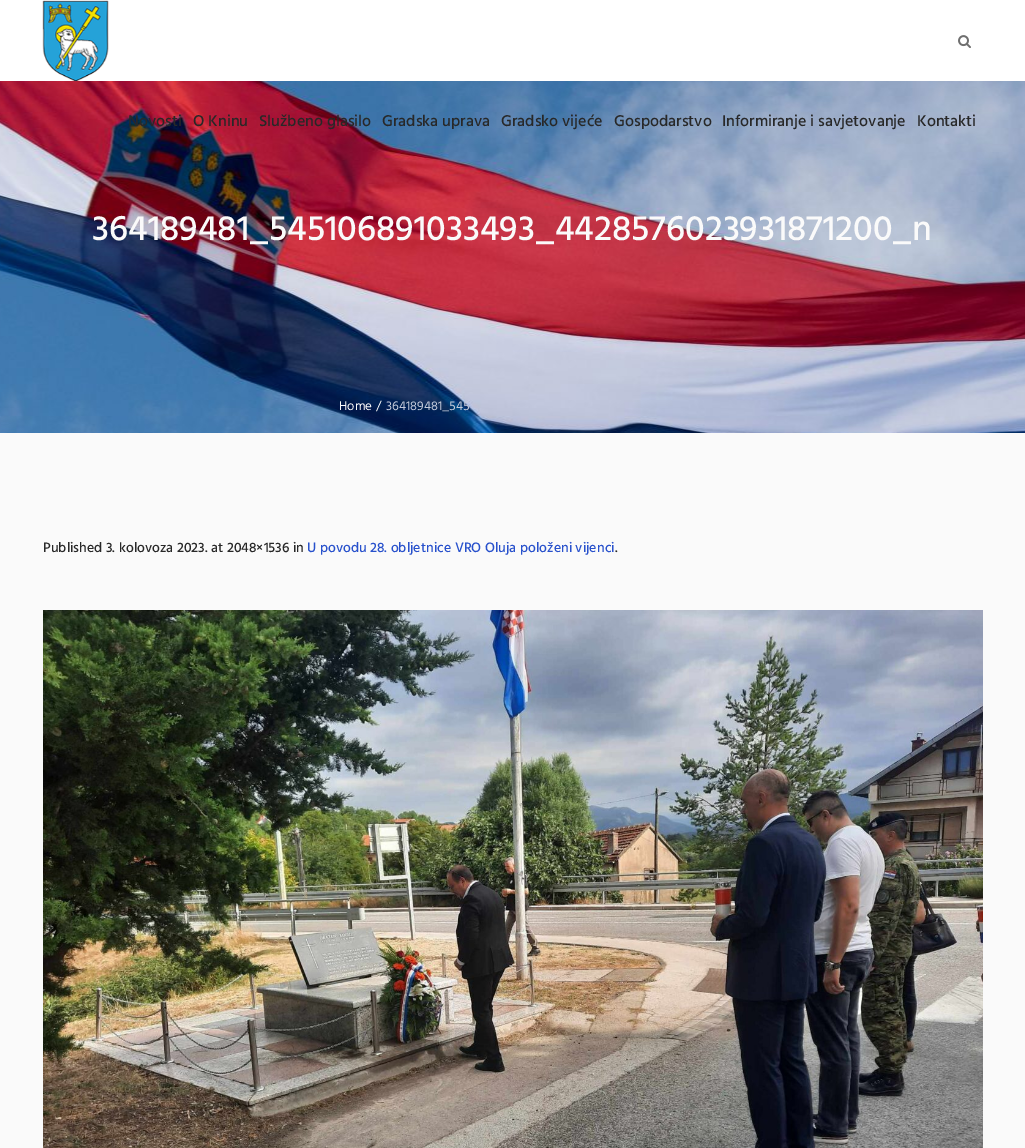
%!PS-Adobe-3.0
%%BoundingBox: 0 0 1025 1148
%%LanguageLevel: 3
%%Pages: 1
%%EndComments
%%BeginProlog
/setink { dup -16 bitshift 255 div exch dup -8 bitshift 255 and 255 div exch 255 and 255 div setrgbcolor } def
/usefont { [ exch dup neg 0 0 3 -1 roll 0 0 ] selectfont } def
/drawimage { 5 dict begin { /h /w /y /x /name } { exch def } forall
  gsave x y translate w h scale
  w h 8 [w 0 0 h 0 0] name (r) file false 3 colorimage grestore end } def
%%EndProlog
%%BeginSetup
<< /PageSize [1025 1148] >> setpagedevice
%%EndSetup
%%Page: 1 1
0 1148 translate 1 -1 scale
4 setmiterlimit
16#FAFAFA setink
0 0 1025 1148 rectfill
16#FFFFFF setink
0 0 1025 81 rectfill
(img1.raw) 42 0 67 81 drawimage
(img2.raw) 958 35 13 13 drawimage
(img3.raw) 0 81 1025 352 drawimage
/Hind-Medium 16 usefont
16#282828 setink
[
    [(Novosti) 128 126]
    [(O Kninu) 193 126]
    [(Službeno glasilo) 259 126]
    [(Gradska uprava) 382 126]
    [(Gradsko vijeće) 501 126]
    [(Gospodarstvo) 614 126]
    [(Informiranje i savjetovanje) 722 126]
    [(Kontakti) 917 126]
] { aload pop moveto show } forall
/Hind-Medium 36 usefont
16#FAFAFA setink
92 240 moveto (364189481_545106891033493_4428576023931871200_n) show
/Hind-Regular 13 usefont
339 410 moveto (Home) show
376 410 moveto (/) show
16#C3CADA setink
386 410 moveto (364189481_545) show
/Hind-Medium 14 usefont
16#282828 setink
43 552 moveto (Published 3. kolovoza 2023. at 2048×1536 in) show
16#2851CC setink
307 552 moveto (U povodu 28. obljetnice VRO Oluja položeni vijenci) show
16#282828 setink
615 552 moveto (.) show
(img4.raw) 43 610 940 538 drawimage
showpage
%%EOF
